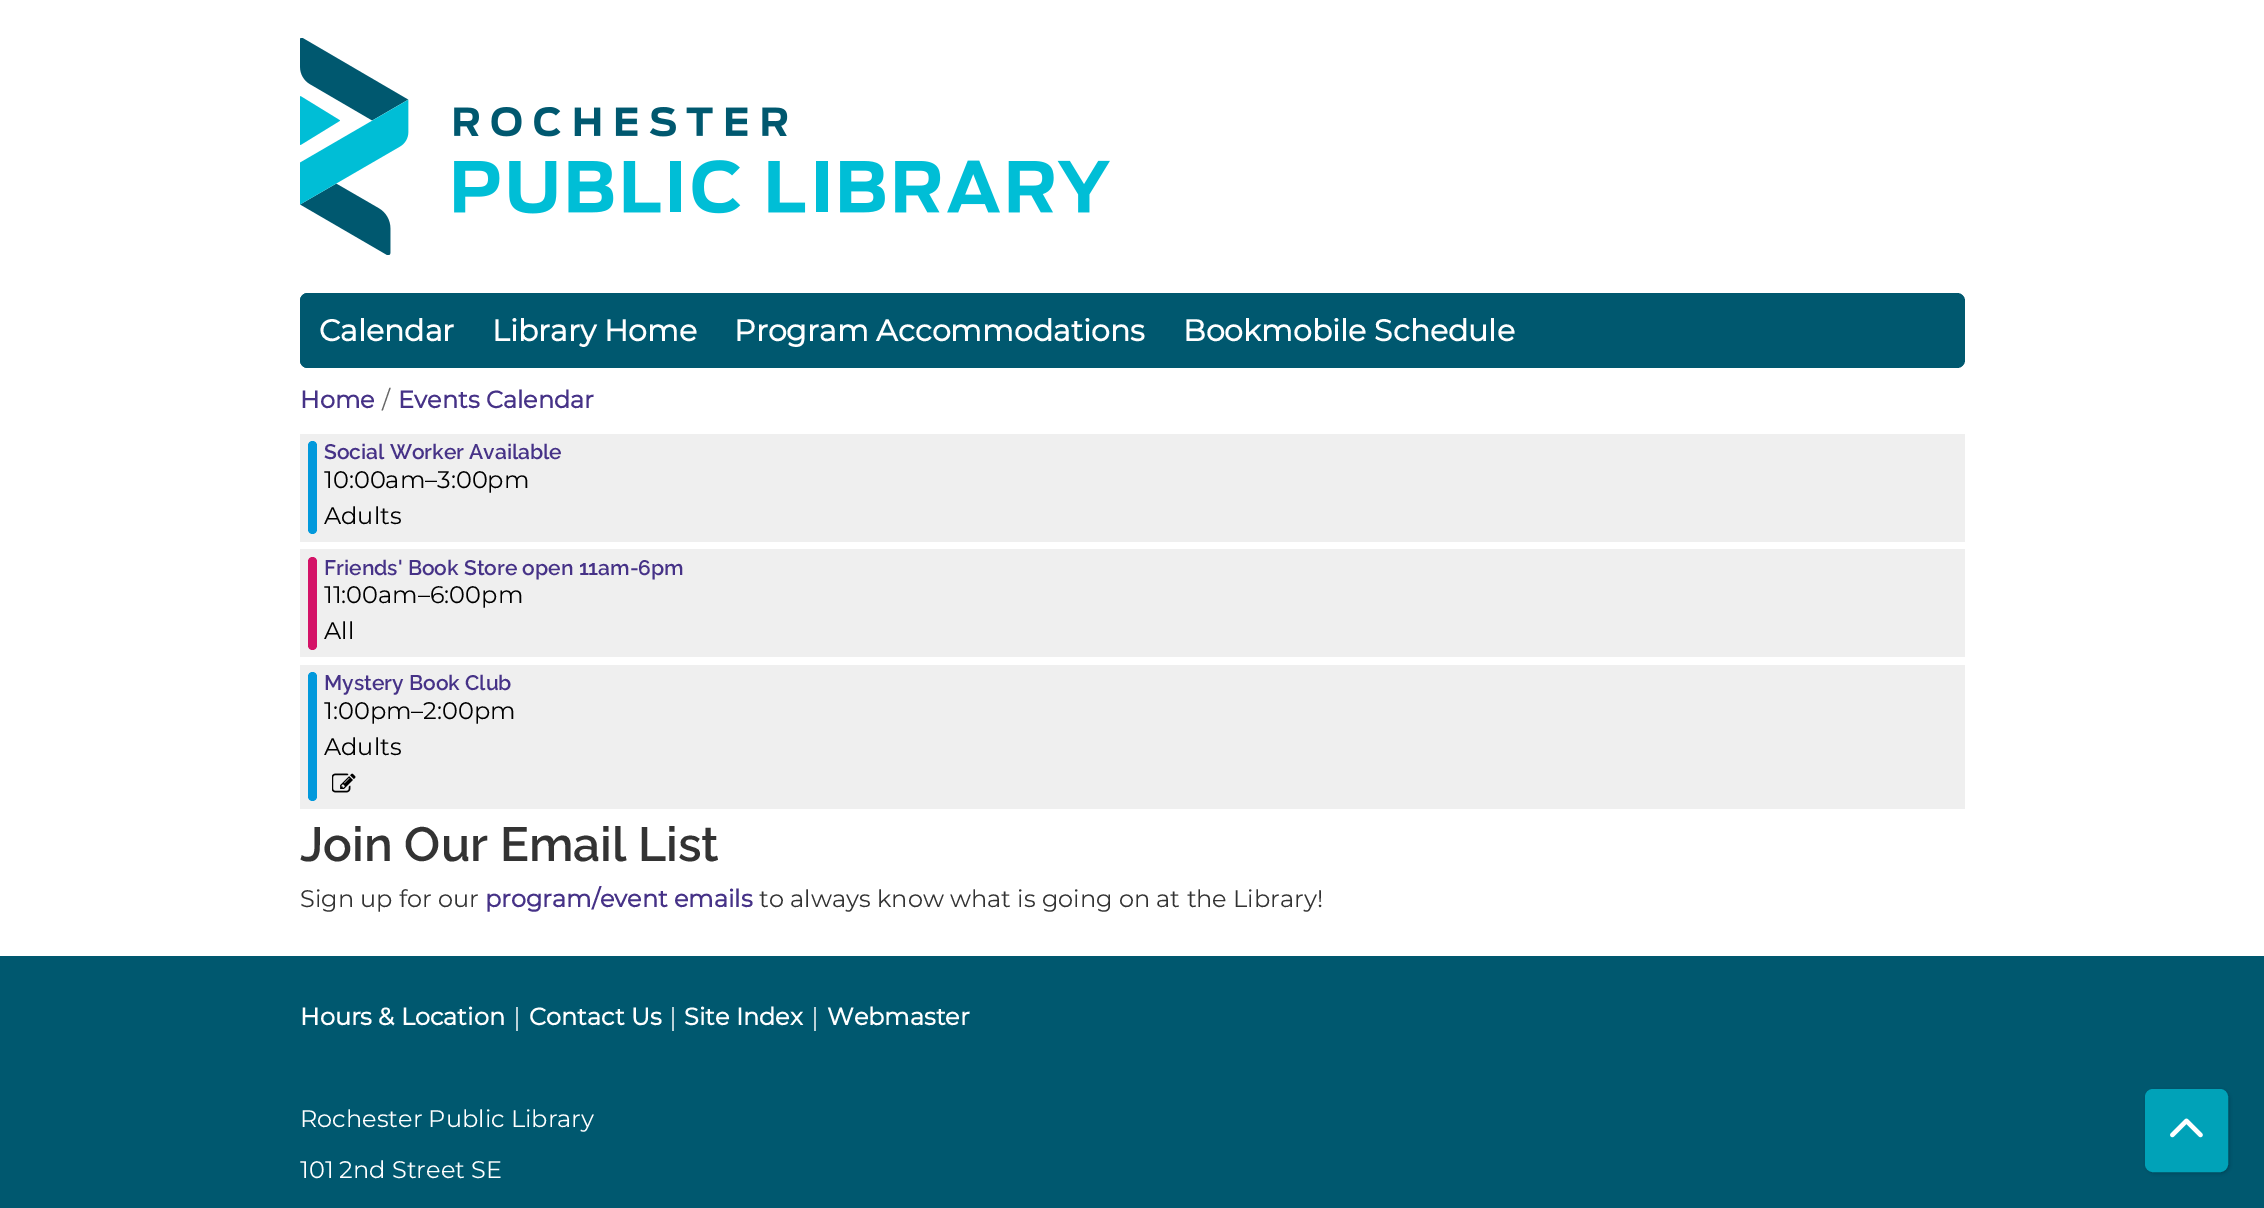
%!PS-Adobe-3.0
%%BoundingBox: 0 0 2264 1208
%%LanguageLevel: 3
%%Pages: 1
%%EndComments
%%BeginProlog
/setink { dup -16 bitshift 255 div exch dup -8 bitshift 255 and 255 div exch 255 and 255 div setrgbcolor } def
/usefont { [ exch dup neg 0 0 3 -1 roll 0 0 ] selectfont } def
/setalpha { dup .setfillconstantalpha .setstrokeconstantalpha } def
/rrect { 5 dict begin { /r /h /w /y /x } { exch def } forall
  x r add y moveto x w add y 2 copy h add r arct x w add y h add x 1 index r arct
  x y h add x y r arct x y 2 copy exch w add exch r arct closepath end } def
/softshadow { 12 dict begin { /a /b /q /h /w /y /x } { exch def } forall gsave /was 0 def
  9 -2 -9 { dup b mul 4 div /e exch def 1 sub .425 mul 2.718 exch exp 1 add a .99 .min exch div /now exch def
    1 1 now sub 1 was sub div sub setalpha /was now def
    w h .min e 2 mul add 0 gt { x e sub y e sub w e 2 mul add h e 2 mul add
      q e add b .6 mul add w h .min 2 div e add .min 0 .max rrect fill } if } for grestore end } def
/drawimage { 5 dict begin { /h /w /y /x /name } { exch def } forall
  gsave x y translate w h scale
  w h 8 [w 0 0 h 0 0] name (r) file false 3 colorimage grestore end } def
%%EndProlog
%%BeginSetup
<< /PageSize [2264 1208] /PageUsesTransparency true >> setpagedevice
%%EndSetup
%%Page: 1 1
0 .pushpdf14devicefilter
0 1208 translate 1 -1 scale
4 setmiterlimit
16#FFFFFF setink
0 0 2264 1208 rectfill
(img1.raw) 300 38 810 217 drawimage
16#00586F setink
300 293 1665 75 8 rrect fill
308 293 moveto 473 293 lineto 473 368 lineto 308 368 lineto 303.5 368 300 364.5 300 360 curveto 300 301 lineto 300 296.5 303.5 293 308 293 curveto closepath fill
/Montserrat-Bold 30 usefont
16#FFFFFF setink
[
    [(Calendar) 319 341]
    [(Library Home) 492 341]
    [(Program Accommodations) 734 341]
    [(Bookmobile Schedule) 1183 341]
] { aload pop moveto show } forall
/Montserrat-Bold 24 usefont
16#463287 setink
300 408 moveto (Home) show
/Montserrat-Thin 24 usefont
16#666666 setink
382 408 moveto (/) show
/Montserrat-Bold 24 usefont
16#463287 setink
398 408 moveto (Events Calendar) show
16#EFEFEF setink
300 434 1665 108 rectfill
16#0299DC setink
308 441 9 93 4.5 rrect fill
/Raleway-Thin 21 usefont
16#463287 setink
324 459 moveto (Social Worker Available) show
/Montserrat-Thin 24 usefont
16#000000 setink
324 488 moveto (10:00am–3:00pm) show
324 524 moveto (Adults) show
16#EFEFEF setink
300 549 1665 108 rectfill
16#D41367 setink
308 557 9 93 4.5 rrect fill
/Raleway-Thin 21 usefont
16#463287 setink
324 575 moveto (Friends' Book Store open 11am-6pm) show
/Montserrat-Thin 24 usefont
16#000000 setink
324 603 moveto (11:00am–6:00pm) show
324 639 moveto (All) show
16#EFEFEF setink
300 665 1665 144 rectfill
16#0299DC setink
308 672 9 129 4.5 rrect fill
/Raleway-Thin 21 usefont
16#463287 setink
324 690 moveto (Mystery Book Club) show
/Montserrat-Thin 24 usefont
16#000000 setink
324 719 moveto (1:00pm–2:00pm) show
324 755 moveto (Adults) show
(img2.raw) 332 773 24 20 drawimage
/Raleway-Thin 48 usefont
16#333333 setink
300 861 moveto (Join Our Email List) show
/Montserrat-Thin 24 usefont
300 907 moveto (Sign up for our) show
/Montserrat-Bold 24 usefont
16#463287 setink
485 907 moveto (program/event emails) show
/Montserrat-Thin 24 usefont
16#333333 setink
759 907 moveto (to always know what is going on at the Library!) show
16#00586F setink
0 956 2264 252 rectfill
/Montserrat-Bold 24 usefont
16#FFFFFF setink
300 1025 moveto (Hours & Location) show
/WenQuanYiZenHei-Medium 24 usefont
505 1025 moveto (｜) show
/Montserrat-Bold 24 usefont
529 1025 moveto (Contact Us) show
/WenQuanYiZenHei-Medium 24 usefont
661 1025 moveto (｜) show
/Montserrat-Bold 24 usefont
684 1025 moveto (Site Index) show
/WenQuanYiZenHei-Medium 24 usefont
803 1025 moveto (｜) show
/Montserrat-Bold 24 usefont
827 1025 moveto (Webmaster) show
/Montserrat-Thin 24 usefont
300 1127 moveto (Rochester Public Library) show
300 1178 moveto (101 2nd Street SE) show
16#000000 setink
2147 1091 82 82 8 2 0.25 softshadow
16#00A2B8 setink
2146 1090 81 81 7 rrect gsave fill grestore
2 setlinewidth
stroke
(img3.raw) 2170 1118 33 20 drawimage
.poppdf14devicefilter showpage
%%EOF
